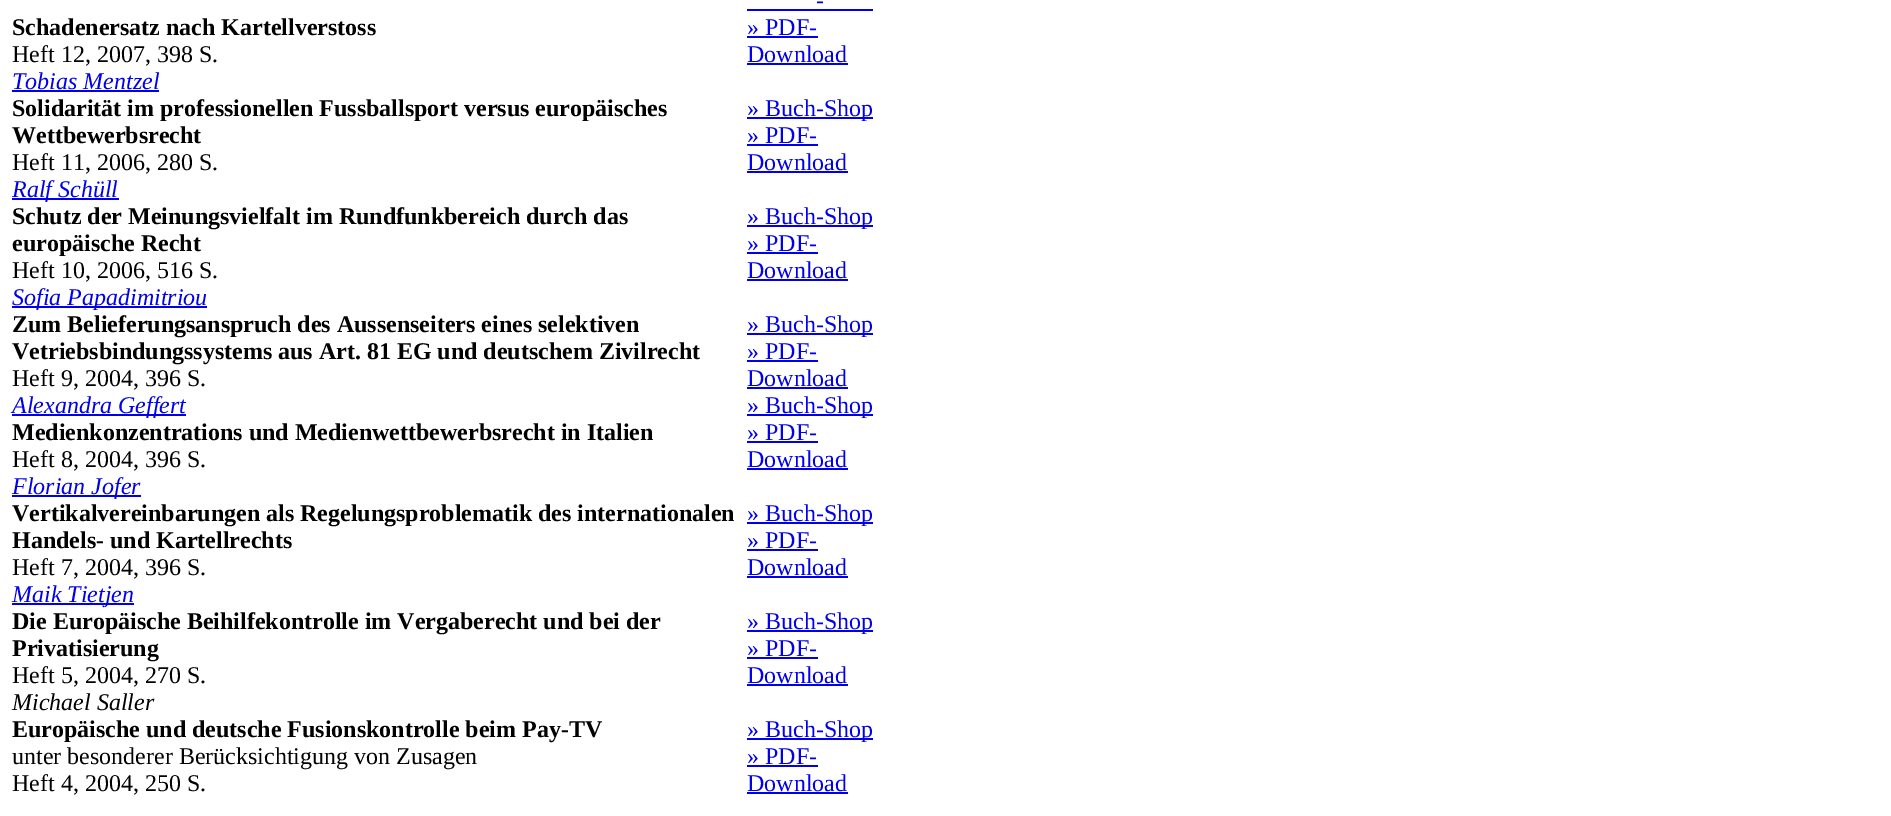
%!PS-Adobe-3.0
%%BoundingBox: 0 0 1891 816
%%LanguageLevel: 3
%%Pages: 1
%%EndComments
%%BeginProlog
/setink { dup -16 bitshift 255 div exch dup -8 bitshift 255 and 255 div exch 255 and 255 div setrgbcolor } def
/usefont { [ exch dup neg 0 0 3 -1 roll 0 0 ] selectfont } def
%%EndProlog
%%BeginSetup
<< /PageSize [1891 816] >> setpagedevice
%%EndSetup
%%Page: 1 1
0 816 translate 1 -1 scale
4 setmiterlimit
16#FFFFFF setink
0 0 1891 816 rectfill
/LiberationSerif-Bold 24 usefont
16#000000 setink
12 35 moveto (Schadenersatz nach Kartellverstoss) show
/LiberationSerif-Regular 24 usefont
12 62 moveto (Heft 12, 2007, 398 S.) show
16#0000EE setink
816 8 moveto (-) show
747 9 126 2 rectfill
747 35 moveto (» PDF-) show
747 36 71 2 rectfill
747 62 moveto (Download) show
747 63 101 2 rectfill
/LiberationSerif-Italic 24 usefont
12 89 moveto (Tobias Mentzel) show
12 90 147 2 rectfill
/LiberationSerif-Bold 24 usefont
16#000000 setink
12 116 moveto (Solidarität im professionellen Fussballsport versus europäisches) show
12 143 moveto (Wettbewerbsrecht) show
/LiberationSerif-Regular 24 usefont
12 170 moveto (Heft 11, 2006, 280 S.) show
16#0000EE setink
747 117 126 2 rectfill
747 116 moveto (» Buch-Shop) show
747 143 moveto (» PDF-) show
747 144 71 2 rectfill
747 170 moveto (Download) show
747 171 101 2 rectfill
12 198 107 2 rectfill
/LiberationSerif-Italic 24 usefont
12 197 moveto (Ralf Schüll) show
/LiberationSerif-Bold 24 usefont
16#000000 setink
12 224 moveto (Schutz der Meinungsvielfalt im Rundfunkbereich durch das) show
12 251 moveto (europäische Recht) show
/LiberationSerif-Regular 24 usefont
12 278 moveto (Heft 10, 2006, 516 S.) show
16#0000EE setink
747 225 126 2 rectfill
747 224 moveto (» Buch-Shop) show
747 251 moveto (» PDF-) show
747 252 71 2 rectfill
747 278 moveto (Download) show
747 279 101 2 rectfill
12 306 195 2 rectfill
/LiberationSerif-Italic 24 usefont
12 305 moveto (Sofia Papadimitriou) show
/LiberationSerif-Bold 24 usefont
16#000000 setink
12 332 moveto (Zum Belieferungsanspruch des Aussenseiters eines selektiven) show
12 359 moveto (Vetriebsbindungssystems aus Art. 81 EG und deutschem Zivilrecht) show
/LiberationSerif-Regular 24 usefont
12 386 moveto (Heft 9, 2004, 396 S.) show
16#0000EE setink
747 333 126 2 rectfill
747 332 moveto (» Buch-Shop) show
747 359 moveto (» PDF-) show
747 360 71 2 rectfill
747 386 moveto (Download) show
747 387 101 2 rectfill
12 414 174 2 rectfill
/LiberationSerif-Italic 24 usefont
12 413 moveto (Alexandra Geffert) show
/LiberationSerif-Bold 24 usefont
16#000000 setink
12 440 moveto (Medienkonzentrations und Medienwettbewerbsrecht in Italien) show
/LiberationSerif-Regular 24 usefont
12 467 moveto (Heft 8, 2004, 396 S.) show
16#0000EE setink
747 414 126 2 rectfill
747 413 moveto (» Buch-Shop) show
747 440 moveto (» PDF-) show
747 441 71 2 rectfill
747 467 moveto (Download) show
747 468 101 2 rectfill
12 495 129 2 rectfill
/LiberationSerif-Italic 24 usefont
12 494 moveto (Florian Jofer) show
/LiberationSerif-Bold 24 usefont
16#000000 setink
12 521 moveto (Vertikalvereinbarungen als Regelungsproblematik des internationalen) show
12 548 moveto (Handels- und Kartellrechts) show
/LiberationSerif-Regular 24 usefont
12 575 moveto (Heft 7, 2004, 396 S.) show
16#0000EE setink
747 522 126 2 rectfill
747 521 moveto (» Buch-Shop) show
747 548 moveto (» PDF-) show
747 549 71 2 rectfill
747 575 moveto (Download) show
747 576 101 2 rectfill
12 603 122 2 rectfill
/LiberationSerif-Italic 24 usefont
12 602 moveto (Maik Tietjen) show
/LiberationSerif-Bold 24 usefont
16#000000 setink
12 629 moveto (Die Europäische Beihilfekontrolle im Vergaberecht und bei der) show
12 656 moveto (Privatisierung) show
/LiberationSerif-Regular 24 usefont
12 683 moveto (Heft 5, 2004, 270 S.) show
16#0000EE setink
747 630 126 2 rectfill
747 629 moveto (» Buch-Shop) show
747 656 moveto (» PDF-) show
747 657 71 2 rectfill
747 683 moveto (Download) show
747 684 101 2 rectfill
/LiberationSerif-Italic 24 usefont
16#000000 setink
12 710 moveto (Michael Saller) show
/LiberationSerif-Bold 24 usefont
12 737 moveto (Europäische und deutsche Fusionskontrolle beim Pay-TV) show
/LiberationSerif-Regular 24 usefont
12 764 moveto (unter besonderer Berücksichtigung von Zusagen) show
12 791 moveto (Heft 4, 2004, 250 S.) show
16#0000EE setink
747 738 126 2 rectfill
747 737 moveto (» Buch-Shop) show
747 764 moveto (» PDF-) show
747 765 71 2 rectfill
747 791 moveto (Download) show
747 792 101 2 rectfill
showpage
%%EOF
